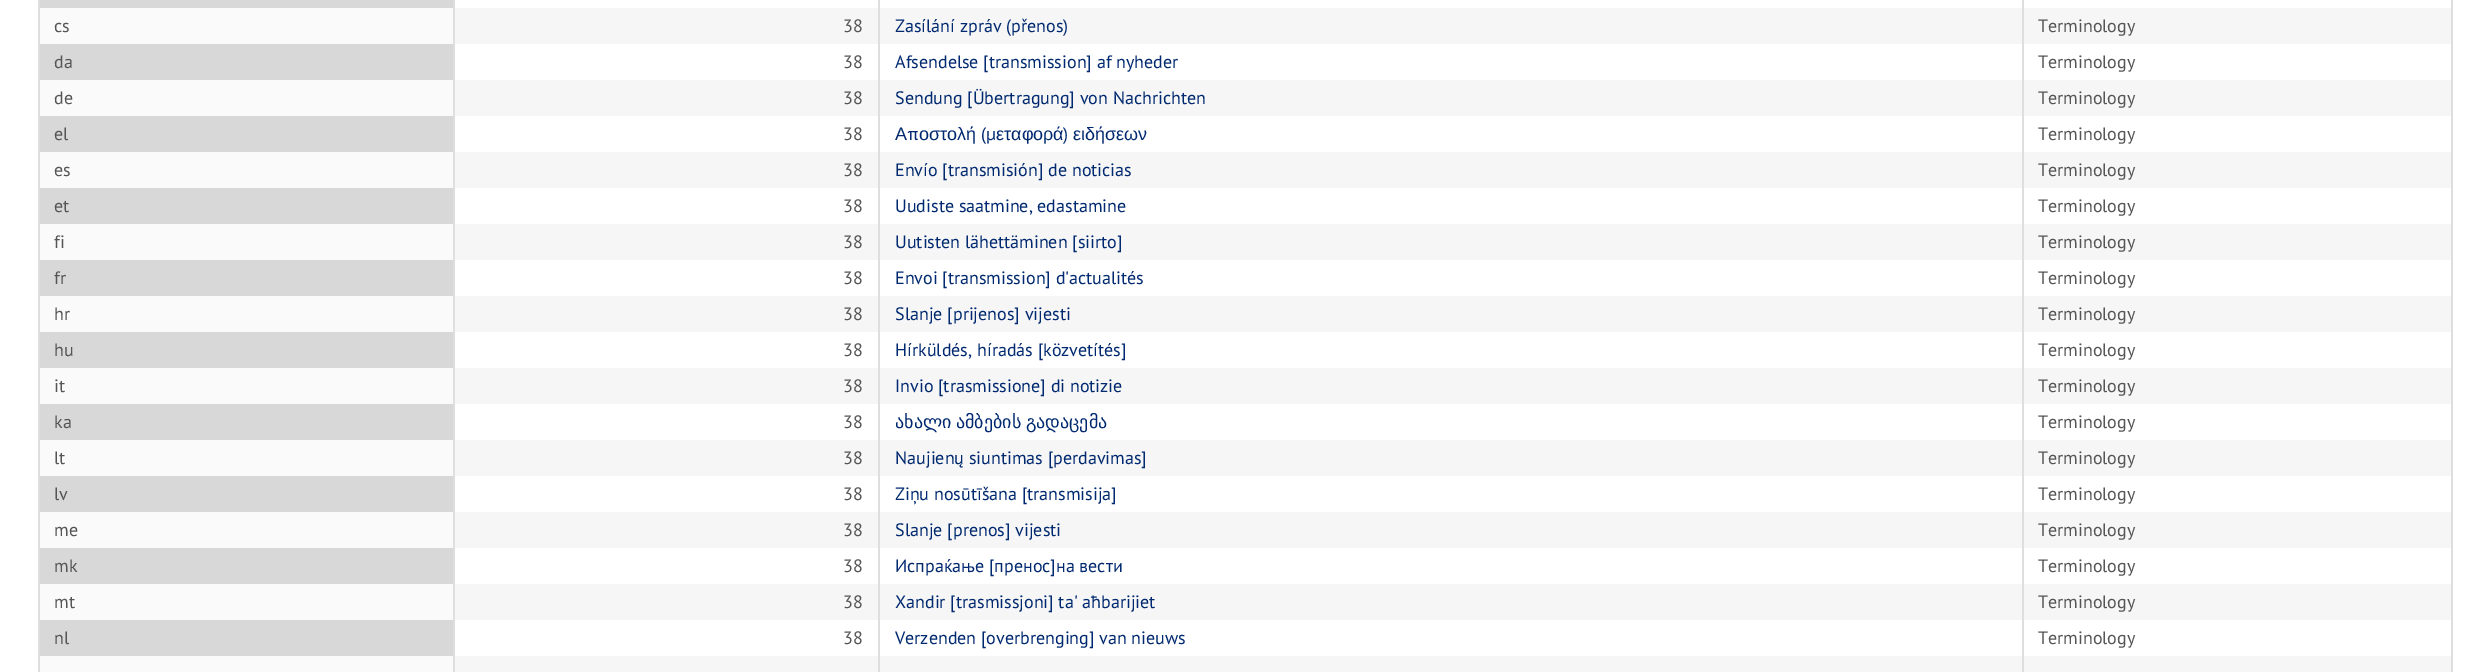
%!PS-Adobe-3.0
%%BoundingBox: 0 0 2489 672
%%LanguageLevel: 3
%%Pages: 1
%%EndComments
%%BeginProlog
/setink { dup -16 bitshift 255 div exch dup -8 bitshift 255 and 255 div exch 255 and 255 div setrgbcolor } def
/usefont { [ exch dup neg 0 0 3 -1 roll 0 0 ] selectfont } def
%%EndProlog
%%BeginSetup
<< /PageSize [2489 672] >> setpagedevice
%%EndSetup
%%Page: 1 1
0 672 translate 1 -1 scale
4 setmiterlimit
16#FFFFFF setink
0 0 2489 672 rectfill
[
    [2451 0 2 672 16#DEDEDE]
    [39 0 416 8 16#D8D8D8]
    [38 0 2 672 16#DEDEDE]
    [455 656 1996 16 16#F6F6F6]
    [40 656 413 16 16#FAFAFA]
    [453 0 2 672 16#DEDEDE]
    [455 8 1996 36 16#F6F6F6]
    [455 80 1996 36 16#F6F6F6]
    [455 152 1996 36 16#F6F6F6]
    [455 224 1996 36 16#F6F6F6]
    [455 296 1996 36 16#F6F6F6]
    [455 368 1996 36 16#F6F6F6]
    [455 440 1996 36 16#F6F6F6]
    [455 512 1996 36 16#F6F6F6]
    [455 584 1996 36 16#F6F6F6]
    [878 0 2 672 16#DEDEDE]
    [2022 0 2 672 16#DEDEDE]
    [40 8 413 36 16#FAFAFA]
] { aload pop setink rectfill } forall
/PTSans-Regular 18 usefont
16#555555 setink
54 32 moveto (cs) show
843 32 moveto (38) show
16#002970 setink
895 32 moveto (Zasílání zpráv \(přenos\)) show
16#555555 setink
2038 32 moveto (Terminology) show
16#D8D8D8 setink
40 44 413 36 rectfill
16#555555 setink
54 68 moveto (da) show
843 68 moveto (38) show
16#002970 setink
895 68 moveto (Afsendelse [transmission] af nyheder) show
16#555555 setink
2038 68 moveto (Terminology) show
16#FAFAFA setink
40 80 413 36 rectfill
16#555555 setink
54 104 moveto (de) show
843 104 moveto (38) show
16#002970 setink
895 104 moveto (Sendung [Übertragung] von Nachrichten) show
16#555555 setink
2038 104 moveto (Terminology) show
16#D8D8D8 setink
40 116 413 36 rectfill
16#555555 setink
54 140 moveto (el) show
843 140 moveto (38) show
/LiberationSans-Regular 18 usefont
16#002970 setink
895 140 moveto (Α) show
/PTSans-Regular 18 usefont
907 140 moveto (π) show
/LiberationSans-Regular 18 usefont
919 140 moveto (οστολή) show
/PTSans-Regular 18 usefont
981 140 moveto (\(μ) show
/LiberationSans-Regular 18 usefont
996 140 moveto (εταφορά) show
/PTSans-Regular 18 usefont
1063 140 moveto (\)) show
/LiberationSans-Regular 18 usefont
1073 140 moveto (ειδήσεων) show
/PTSans-Regular 18 usefont
16#555555 setink
2038 140 moveto (Terminology) show
16#FAFAFA setink
40 152 413 36 rectfill
16#555555 setink
54 176 moveto (es) show
843 176 moveto (38) show
16#002970 setink
895 176 moveto (Envío [transmisión] de noticias) show
16#555555 setink
2038 176 moveto (Terminology) show
16#D8D8D8 setink
40 188 413 36 rectfill
16#555555 setink
54 212 moveto (et) show
843 212 moveto (38) show
16#002970 setink
895 212 moveto (Uudiste saatmine, edastamine) show
16#555555 setink
2038 212 moveto (Terminology) show
16#FAFAFA setink
40 224 413 36 rectfill
16#555555 setink
54 248 moveto (fi) show
843 248 moveto (38) show
16#002970 setink
895 248 moveto (Uutisten lähettäminen [siirto]) show
16#555555 setink
2038 248 moveto (Terminology) show
16#D8D8D8 setink
40 260 413 36 rectfill
16#555555 setink
54 284 moveto (fr) show
843 284 moveto (38) show
16#002970 setink
895 284 moveto (Envoi [transmission] d'actualités) show
16#555555 setink
2038 284 moveto (Terminology) show
16#FAFAFA setink
40 296 413 36 rectfill
16#555555 setink
54 320 moveto (hr) show
843 320 moveto (38) show
16#002970 setink
895 320 moveto (Slanje [prijenos] vijesti) show
16#555555 setink
2038 320 moveto (Terminology) show
16#D8D8D8 setink
40 332 413 36 rectfill
16#555555 setink
54 356 moveto (hu) show
843 356 moveto (38) show
16#002970 setink
895 356 moveto (Hírküldés, híradás [közvetítés]) show
16#555555 setink
2038 356 moveto (Terminology) show
16#FAFAFA setink
40 368 413 36 rectfill
16#555555 setink
54 392 moveto (it) show
843 392 moveto (38) show
16#002970 setink
895 392 moveto (Invio [trasmissione] di notizie) show
16#555555 setink
2038 392 moveto (Terminology) show
16#D8D8D8 setink
40 404 413 36 rectfill
16#555555 setink
54 428 moveto (ka) show
843 428 moveto (38) show
/DejaVuSans-Regular 18 usefont
16#002970 setink
895 428 moveto -1 0 32 (ახალი ამბების გადაცემა) widthshow
/PTSans-Regular 18 usefont
16#555555 setink
2038 428 moveto (Terminology) show
16#FAFAFA setink
40 440 413 36 rectfill
16#555555 setink
54 464 moveto (lt) show
843 464 moveto (38) show
16#002970 setink
895 464 moveto (Naujienų siuntimas [perdavimas]) show
16#555555 setink
2038 464 moveto (Terminology) show
16#D8D8D8 setink
40 476 413 36 rectfill
16#555555 setink
54 500 moveto (lv) show
843 500 moveto (38) show
16#002970 setink
895 500 moveto (Ziņu nosūtīšana [transmisija]) show
16#555555 setink
2038 500 moveto (Terminology) show
16#FAFAFA setink
40 512 413 36 rectfill
16#555555 setink
54 536 moveto (me) show
843 536 moveto (38) show
16#002970 setink
895 536 moveto (Slanje [prenos] vijesti) show
16#555555 setink
2038 536 moveto (Terminology) show
16#D8D8D8 setink
40 548 413 36 rectfill
16#555555 setink
54 572 moveto (mk) show
843 572 moveto (38) show
16#002970 setink
895 572 moveto (Испраќање [пренос]на вести) show
16#555555 setink
2038 572 moveto (Terminology) show
16#FAFAFA setink
40 584 413 36 rectfill
16#555555 setink
54 608 moveto (mt) show
843 608 moveto (38) show
16#002970 setink
895 608 moveto (Xandir [trasmissjoni] ta' aħbarijiet) show
16#555555 setink
2038 608 moveto (Terminology) show
16#D8D8D8 setink
40 620 413 36 rectfill
16#555555 setink
54 644 moveto (nl) show
843 644 moveto (38) show
16#002970 setink
895 644 moveto (Verzenden [overbrenging] van nieuws) show
16#555555 setink
2038 644 moveto (Terminology) show
showpage
%%EOF
